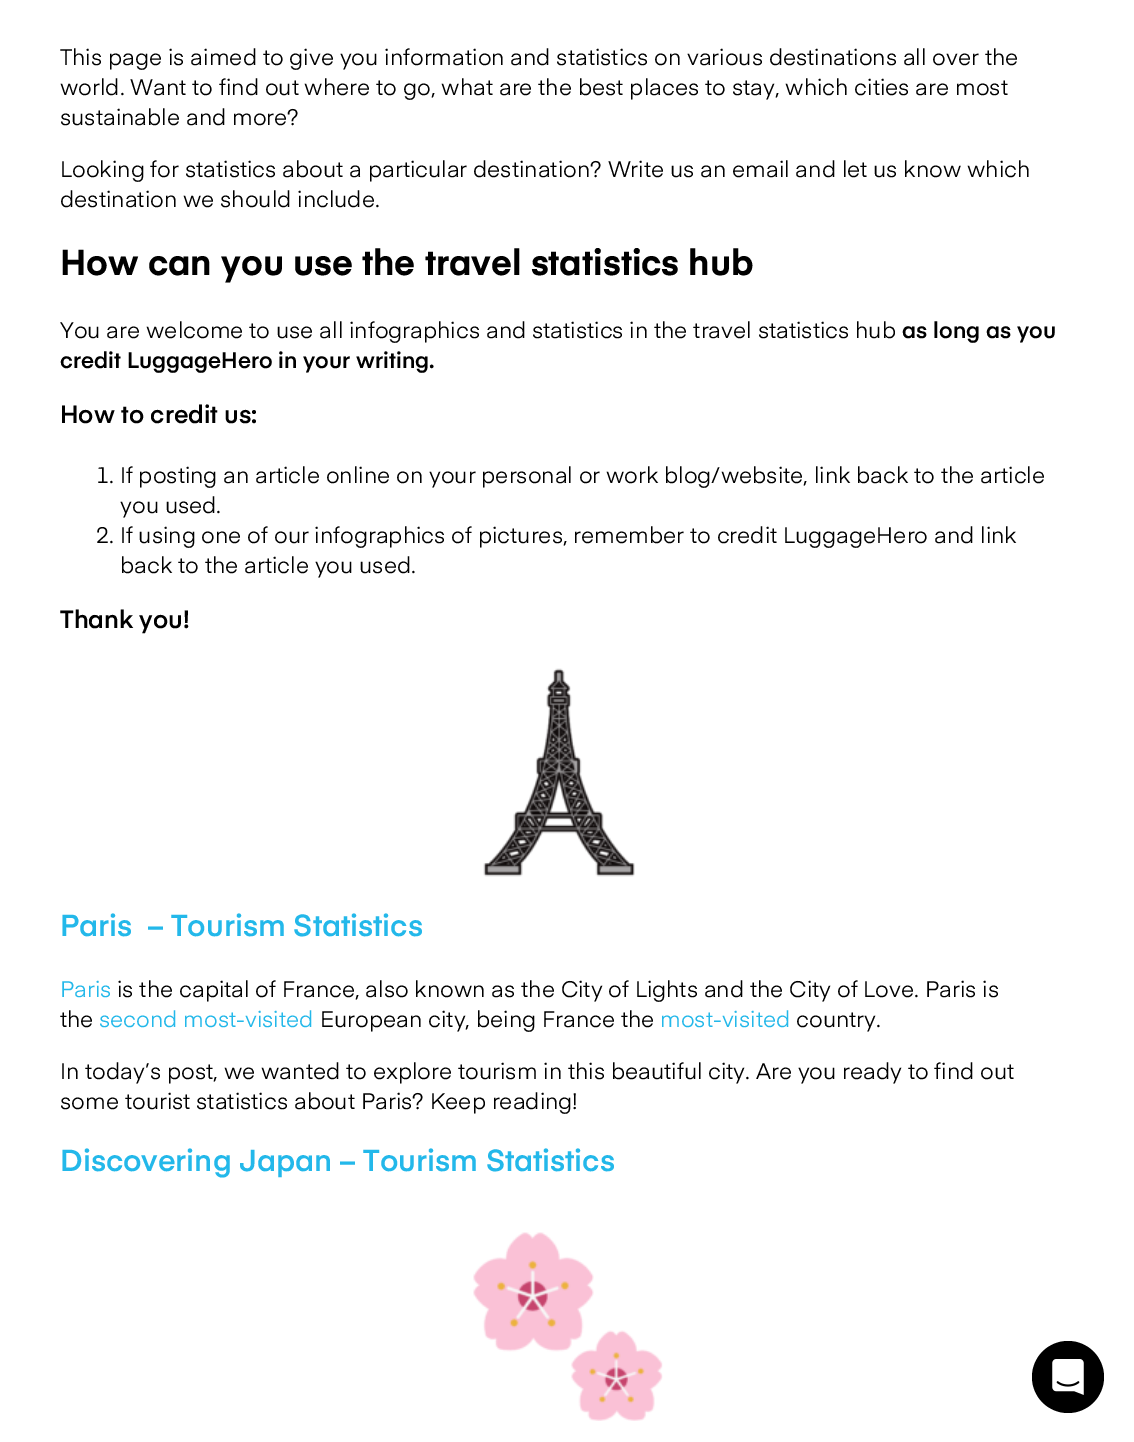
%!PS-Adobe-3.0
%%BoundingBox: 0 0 1134 1442
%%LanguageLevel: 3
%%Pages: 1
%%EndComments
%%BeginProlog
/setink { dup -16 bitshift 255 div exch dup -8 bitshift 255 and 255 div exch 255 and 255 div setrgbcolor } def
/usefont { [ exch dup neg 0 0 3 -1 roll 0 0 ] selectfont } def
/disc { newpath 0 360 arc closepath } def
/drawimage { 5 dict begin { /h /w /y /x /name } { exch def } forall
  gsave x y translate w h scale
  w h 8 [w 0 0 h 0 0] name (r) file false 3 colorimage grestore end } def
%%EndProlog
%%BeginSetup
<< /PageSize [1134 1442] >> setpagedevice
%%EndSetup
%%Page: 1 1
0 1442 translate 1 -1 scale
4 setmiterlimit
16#FFFFFF setink
0 0 1134 1442 rectfill
/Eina-Regular 22.25 usefont
16#000000 setink
[
    [(This page is aimed to give you information and statistics on various destinations all over the) 60 65]
    [(world. Want to find out where to go, what are the best places to stay, which cities are most) 60 95]
    [(sustainable and more?) 60 125]
    [(Looking for statistics about a particular destination? Write us an email and let us know which) 60 177]
    [(destination we should include.) 60 207]
] { aload pop moveto show } forall
/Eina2-Regular 35.5 usefont
60 275 moveto (How can you use the travel statistics hub) show
/Eina-Regular 22.25 usefont
60 338 moveto (You are welcome to use all infographics and statistics in the travel statistics hub) show
/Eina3-Regular 22.25 usefont
902 338 moveto (as long as you) show
60 368 moveto (credit LuggageHero in your writing.) show
/Eina3-Regular 24.75 usefont
60 423 moveto (How to credit us:) show
/Eina-Regular 22.25 usefont
[
    [(1. If posting an article online on your personal or work blog/website, link back to the article) 96 483]
    [(you used.) 120 513]
    [(2. If using one of our infographics of pictures, remember to credit LuggageHero and link) 96 543]
    [(back to the article you used.) 120 573]
] { aload pop moveto show } forall
/Eina3-Regular 24.75 usefont
60 628 moveto (Thank you!) show
(img1.raw) 483 668 152 209 drawimage
/Eina3-Regular 30.1 usefont
16#23B8EA setink
60 936 moveto (Paris  – Tourism Statistics) show
/Eina-Regular 22.25 usefont
60 997 moveto (Paris) show
16#000000 setink
117 997 moveto (is the capital of France, also known as the City of Lights and the City of Love. Paris is) show
60 1027 moveto (the) show
16#23B8EA setink
99 1027 moveto (second most-visited) show
16#000000 setink
320 1027 moveto (European city, being France the) show
16#23B8EA setink
660 1027 moveto (most-visited) show
16#000000 setink
[
    [(country.) 796 1027]
    [(In today’s post, we wanted to explore tourism in this beautiful city. Are you ready to find out) 60 1079]
    [(some tourist statistics about Paris? Keep reading!) 60 1109]
] { aload pop moveto show } forall
/Eina3-Regular 30.1 usefont
16#23B8EA setink
60 1171 moveto (Discovering Japan – Tourism Statistics) show
(img2.raw) 473 1232 190 189 drawimage
16#000000 setink
1068 1377 36 disc fill
(img3.raw) 1052 1359 32 36 drawimage
showpage
%%EOF
